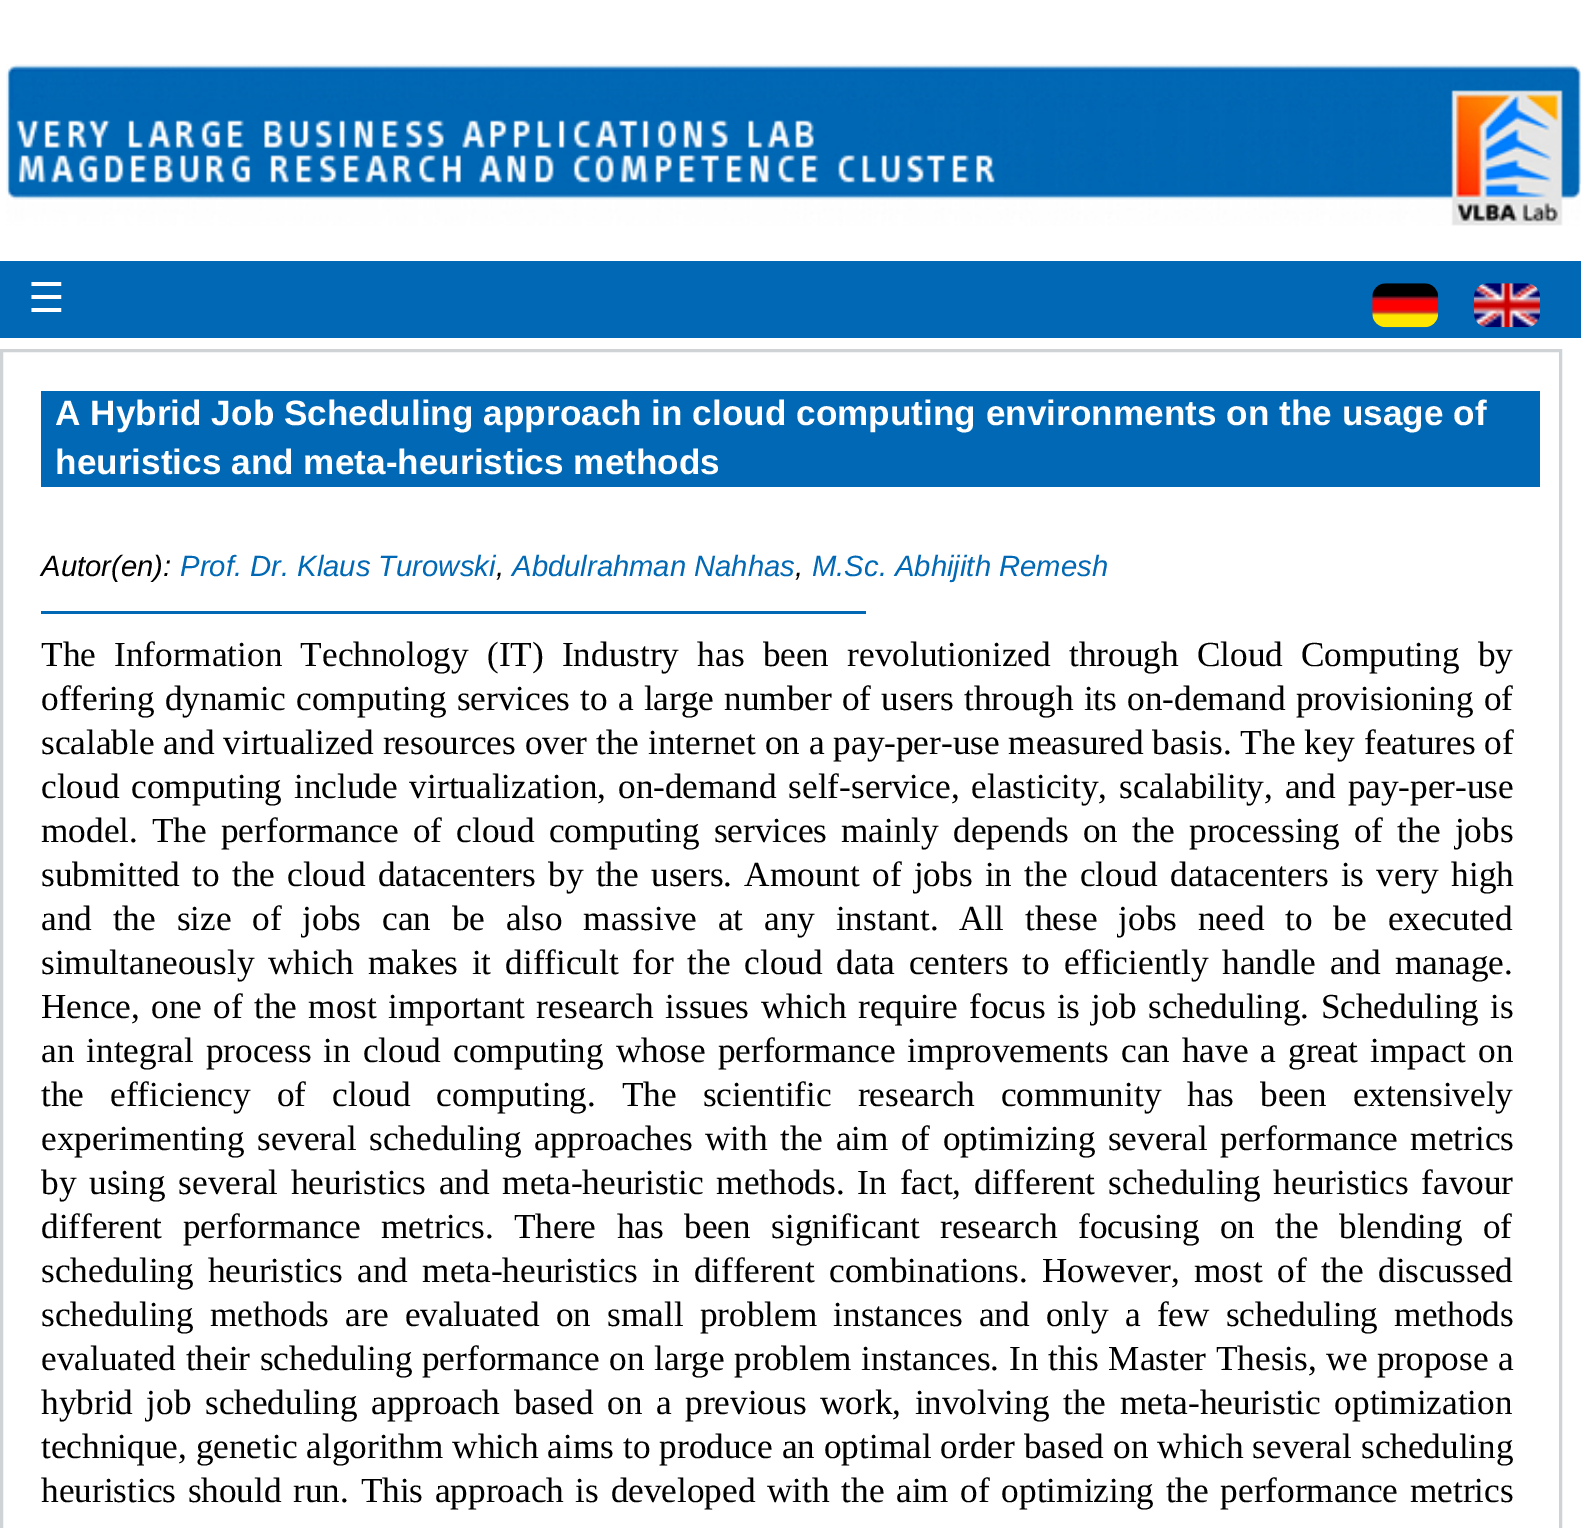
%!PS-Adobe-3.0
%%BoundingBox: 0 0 1581 1528
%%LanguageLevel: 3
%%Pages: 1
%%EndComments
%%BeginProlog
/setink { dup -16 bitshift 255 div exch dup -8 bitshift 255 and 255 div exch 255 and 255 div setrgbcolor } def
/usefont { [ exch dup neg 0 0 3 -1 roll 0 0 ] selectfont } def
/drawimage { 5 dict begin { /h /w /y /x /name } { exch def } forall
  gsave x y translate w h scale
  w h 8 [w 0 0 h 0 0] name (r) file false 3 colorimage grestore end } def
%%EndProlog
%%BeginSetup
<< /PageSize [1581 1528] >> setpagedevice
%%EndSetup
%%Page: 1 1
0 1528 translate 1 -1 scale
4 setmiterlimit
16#FFFFFF setink
0 0 1581 1528 rectfill
(img1.raw) 6 64 1575 162 drawimage
16#0068B4 setink
0 261 1581 77 rectfill
/DejaVuSans-Regular 41 usefont
16#FFFFFF setink
28 312 moveto (☰) show
(img2.raw) 1372 283 67 45 drawimage
(img3.raw) 1474 283 66 45 drawimage
16#CFD3D6 setink
3 setlinewidth
1.5 350.5 1559 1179 rectstroke
16#0068B4 setink
41 391 1499 96 rectfill
/LiberationSans-Bold 35.2 usefont
16#FFFFFF setink
55 425 moveto (A Hybrid Job Scheduling approach in cloud computing environments on the usage of) show
55 474 moveto (heuristics and meta-heuristics methods) show
/LiberationSans-Italic 29.25 usefont
16#000000 setink
41 576 moveto (Autor\(en\):) show
16#0068B4 setink
180 576 moveto (Prof. Dr. Klaus Turowski) show
16#000000 setink
496 576 moveto (,) show
16#0068B4 setink
512 576 moveto (Abdulrahman Nahhas) show
16#000000 setink
795 576 moveto (,) show
16#0068B4 setink
812 576 moveto (M.Sc. Abhijith Remesh) show
41 611 825 3 rectfill
/LiberationSerif-Regular 35.2 usefont
16#000000 setink
41 666 moveto 9.5 0 32 (The Information Technology \(IT\) Industry has been revolutionized through Cloud Computing by) widthshow
41 710 moveto 1.4 0 32 (offering dynamic computing services to a large number of users through its on-demand provisioning of) widthshow
41 754 moveto 0.2 0 32 (scalable and virtualized resources over the internet on a pay-per-use measured basis. The key features of) widthshow
41 798 moveto 3.25 0 32 (cloud computing include virtualization, on-demand self-service, elasticity, scalability, and pay-per-use) widthshow
41 842 moveto 5.4 0 32 (model. The performance of cloud computing services mainly depends on the processing of the jobs) widthshow
41 886 moveto 3.5 0 32 (submitted to the cloud datacenters by the users. Amount of jobs in the cloud datacenters is very high) widthshow
41 930 moveto 12.1 0 32 (and the size of jobs can be also massive at any instant. All these jobs need to be executed) widthshow
41 974 moveto 5.1 0 32 (simultaneously which makes it difficult for the cloud data centers to efficiently handle and manage.) widthshow
41 1018 moveto 2.6 0 32 (Hence, one of the most important research issues which require focus is job scheduling. Scheduling is) widthshow
41 1062 moveto 3.25 0 32 (an integral process in cloud computing whose performance improvements can have a great impact on) widthshow
41 1106 moveto 17.25 0 32 (the efficiency of cloud computing. The scientific research community has been extensively) widthshow
41 1150 moveto 3.75 0 32 (experimenting several scheduling approaches with the aim of optimizing several performance metrics) widthshow
41 1194 moveto 4.1 0 32 (by using several heuristics and meta-heuristic methods. In fact, different scheduling heuristics favour) widthshow
41 1238 moveto 11.75 0 32 (different performance metrics. There has been significant research focusing on the blending of) widthshow
41 1282 moveto 5.6 0 32 (scheduling heuristics and meta-heuristics in different combinations. However, most of the discussed) widthshow
41 1326 moveto 7.5 0 32 (scheduling methods are evaluated on small problem instances and only a few scheduling methods) widthshow
41 1370 moveto 0.9 0 32 (evaluated their scheduling performance on large problem instances. In this Master Thesis, we propose a) widthshow
41 1414 moveto 4.75 0 32 (hybrid job scheduling approach based on a previous work, involving the meta-heuristic optimization) widthshow
41 1458 moveto 0.25 0 32 (technique, genetic algorithm which aims to produce an optimal order based on which several scheduling) widthshow
41 1502 moveto 2.9 0 32 (heuristics should run. This approach is developed with the aim of optimizing the performance metrics) widthshow
showpage
%%EOF
